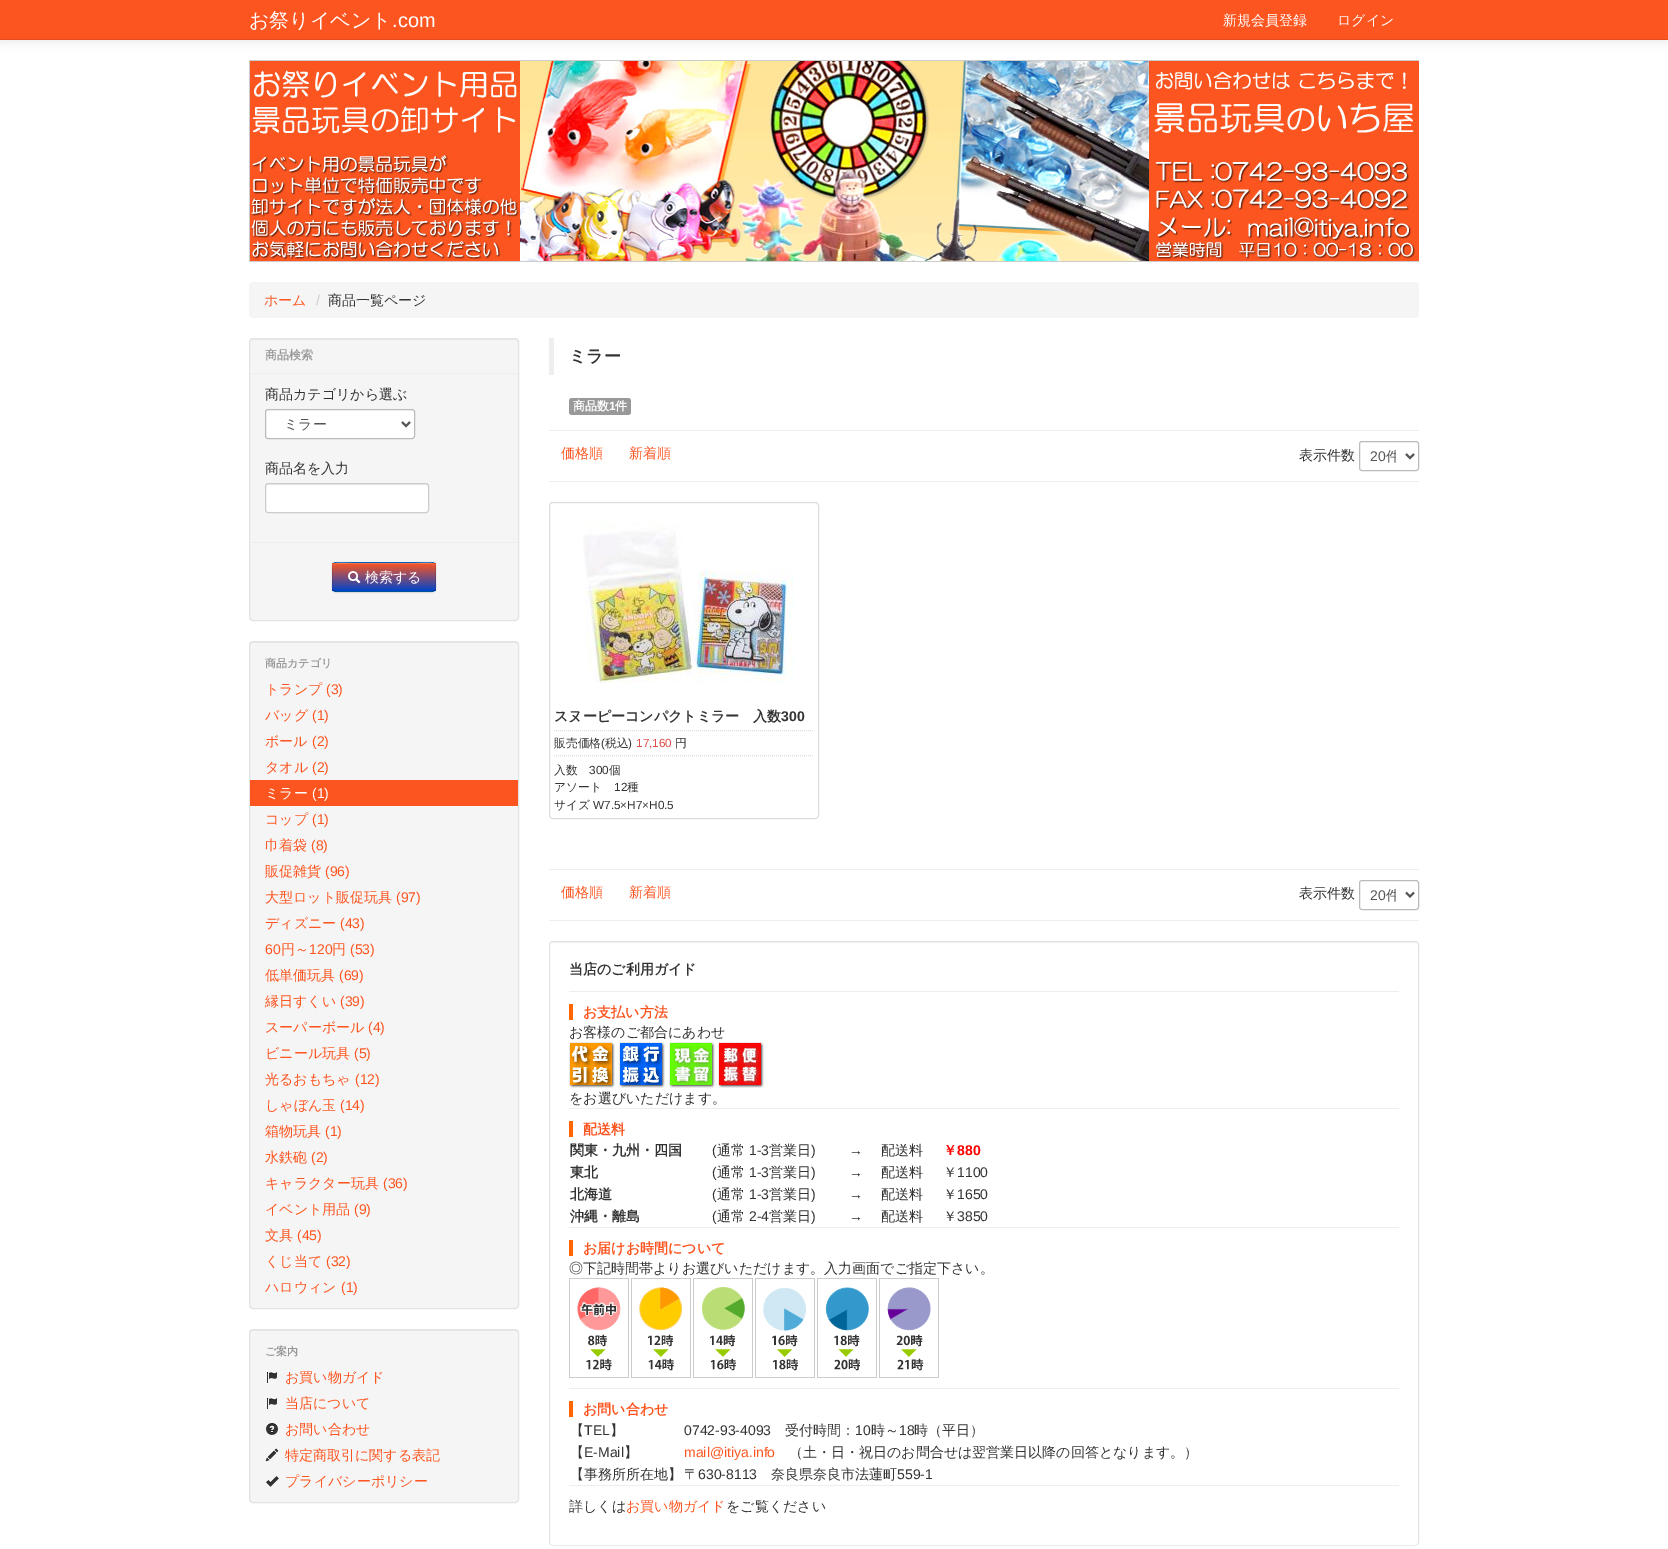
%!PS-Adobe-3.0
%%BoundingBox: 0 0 1668 1549
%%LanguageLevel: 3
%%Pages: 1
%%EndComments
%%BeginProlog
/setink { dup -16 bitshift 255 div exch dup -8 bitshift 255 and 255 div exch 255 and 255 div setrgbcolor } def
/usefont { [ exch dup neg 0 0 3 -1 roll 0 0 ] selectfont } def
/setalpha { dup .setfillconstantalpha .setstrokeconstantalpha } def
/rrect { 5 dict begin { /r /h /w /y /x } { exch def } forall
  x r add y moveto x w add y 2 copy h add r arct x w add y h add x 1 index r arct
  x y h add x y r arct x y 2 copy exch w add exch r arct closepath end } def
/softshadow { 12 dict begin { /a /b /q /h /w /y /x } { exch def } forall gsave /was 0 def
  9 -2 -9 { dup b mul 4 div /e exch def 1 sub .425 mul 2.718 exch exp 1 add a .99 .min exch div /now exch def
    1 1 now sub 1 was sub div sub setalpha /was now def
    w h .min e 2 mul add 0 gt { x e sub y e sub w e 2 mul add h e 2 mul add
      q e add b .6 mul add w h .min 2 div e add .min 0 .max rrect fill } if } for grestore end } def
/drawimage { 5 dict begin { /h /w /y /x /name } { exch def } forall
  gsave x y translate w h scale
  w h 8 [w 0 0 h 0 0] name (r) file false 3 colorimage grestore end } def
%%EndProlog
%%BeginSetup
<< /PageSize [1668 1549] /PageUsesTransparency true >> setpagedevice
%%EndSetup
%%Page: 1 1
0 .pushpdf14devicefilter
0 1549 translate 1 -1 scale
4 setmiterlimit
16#FFFFFF setink
0 0 1668 1549 rectfill
16#000000 setink
0 1 1668 40 0 5 0.1 softshadow
16#FC5520 setink
0 0 1668 39 rectfill
16#E34D1D setink
0 39 1668 1 rectfill
/WenQuanYiZenHei-Medium 20 usefont
16#FFFFFF setink
249 27 moveto (お祭りイベント) show
/LiberationSans-Regular 20 usefont
392 27 moveto (.com) show
/WenQuanYiZenHei-Medium 14 usefont
1223 25 moveto (新規会員登録) show
1337 25 moveto (ログイン) show
(img1.raw) 249 60 1170 202 drawimage
16#F5F5F5 setink
249 282 1170 36 4 rrect fill
16#FC5520 setink
264 305 moveto (ホーム) show
/LiberationSans-Regular 14 usefont
16#CCCCCC setink
316 305 moveto (/) show
/WenQuanYiZenHei-Medium 14 usefont
16#333333 setink
328 305 moveto (商品一覧ページ) show
16#F5F5F5 setink
249 338 270 283 4 rrect fill
16#E9E9E9 setink
253 340 moveto 515 340 lineto 517 340 518 341 518 343 curveto 518 341 517 339 515 339 curveto 253 339 lineto 251 339 250 341 250 343 curveto 250 341 251 340 253 340 curveto closepath fill
16#E3E3E3 setink
249.5 338.5 269 282 3.5 rrect stroke
16#EEEEEE setink
250 373 268 1 rectfill
/WenQuanYiZenHei-Bold 12 usefont
16#999999 setink
265 359 moveto (商品検索) show
/WenQuanYiZenHei-Medium 14 usefont
16#333333 setink
265 399 moveto (商品カテゴリから選ぶ) show
16#FFFFFF setink
265.5 409.5 149 29 2.5 rrect gsave fill grestore
16#BBBBBB setink
stroke
16#555555 setink
2 setlinewidth
402 422 moveto 406 426 lineto 410 422 lineto stroke
284 429 moveto (ミラー) show
16#333333 setink
265 473 moveto (商品名を入力) show
16#FFFFFF setink
265 483 164 30 3 rrect fill
16#ECECEC setink
268 485 moveto 426 485 lineto 427 485 428 486 428 487 curveto 428 486 428 484 426 484 curveto 268 484 lineto 266 484 266 486 266 487 curveto 266 486 267 485 268 485 curveto closepath fill
16#CCCCCC setink
1 setlinewidth
265.5 483.5 163 29 2.5 rrect stroke
16#EEEEEE setink
250 542 268 1 rectfill
16#000000 setink
332 563 104 30 4 1 0.05 softshadow
16#006DCC setink
332 562 104 30 4 rrect fill
gsave
332 562 104 30 4 rrect clip newpath
gsave 332 563 moveto 436 563 lineto 436 591 lineto 332 591 lineto closepath clip newpath
<< /ShadingType 2 /ColorSpace /DeviceRGB /Coords [384 563 384 591] /Extend [true true] /Function << /FunctionType 2 /Domain [0 1] /C0 [0.988 0.333 0.125] /C1 [0 0.267 0.8] /N 1 >> >> shfill grestore
grestore
0.2 setalpha
16#FFFFFF setink
336 564 moveto 432 564 lineto 434 564 435 565 435 567 curveto 435 559 419 563 416 563 curveto 352 563 lineto 349 563 333 559 333 567 curveto 333 565 334 564 336 564 curveto closepath fill
0.25 setalpha
16#000000 setink
434.5 590.5 moveto 432 591.5 lineto 335.5 591.5 lineto 333.5 590.5 lineto stroke
0.1 setalpha
333.5 590.5 moveto 331 588 332.5 583.5 332.5 580.5 curveto 332.5 559 329 562.5 352 562.5 curveto 416 562.5 lineto 439 562.5 435.5 559 435.5 580.5 curveto 435.5 583.5 437 588 434.5 590.5 curveto stroke
1 setalpha
(img2.raw) 348 571 13 13 drawimage
16#FFFFFF setink
365 582 moveto (検索する) show
16#F5F5F5 setink
249 641 270 668 4 rrect fill
16#E9E9E9 setink
253 643 moveto 515 643 lineto 517 643 518 644 518 646 curveto 518 644 517 642 515 642 curveto 253 642 lineto 251 642 250 644 250 646 curveto 250 644 251 643 253 643 curveto closepath fill
16#E3E3E3 setink
249.5 641.5 269 667 3.5 rrect stroke
/WenQuanYiZenHei-Bold 11 usefont
16#999999 setink
265 667 moveto (商品カテゴリ) show
/WenQuanYiZenHei-Medium 14 usefont
16#FC5520 setink
265 694 moveto (トランプ) show
/LiberationSans-Regular 14 usefont
326 694 moveto (\(3\)) show
/WenQuanYiZenHei-Medium 14 usefont
265 720 moveto (バッグ) show
/LiberationSans-Regular 14 usefont
312 720 moveto (\(1\)) show
/WenQuanYiZenHei-Medium 14 usefont
265 746 moveto (ボール) show
/LiberationSans-Regular 14 usefont
312 746 moveto (\(2\)) show
/WenQuanYiZenHei-Medium 14 usefont
265 772 moveto (タオル) show
/LiberationSans-Regular 14 usefont
312 772 moveto (\(2\)) show
250 780 268 26 rectfill
/WenQuanYiZenHei-Medium 14 usefont
16#FFFFFF setink
265 798 moveto (ミラー) show
/LiberationSans-Regular 14 usefont
312 798 moveto (\(1\)) show
/WenQuanYiZenHei-Medium 14 usefont
16#FC5520 setink
265 824 moveto (コップ) show
/LiberationSans-Regular 14 usefont
312 824 moveto (\(1\)) show
/WenQuanYiZenHei-Medium 14 usefont
265 850 moveto (巾着袋) show
/LiberationSans-Regular 14 usefont
311 850 moveto (\(8\)) show
/WenQuanYiZenHei-Medium 14 usefont
265 876 moveto (販促雑貨) show
/LiberationSans-Regular 14 usefont
325 876 moveto (\(96\)) show
/WenQuanYiZenHei-Medium 14 usefont
265 902 moveto (大型ロット販促玩具) show
/LiberationSans-Regular 14 usefont
396 902 moveto (\(97\)) show
/WenQuanYiZenHei-Medium 14 usefont
265 928 moveto (ディズニー) show
/LiberationSans-Regular 14 usefont
340 928 moveto (\(43\)) show
265 954 moveto (60) show
/WenQuanYiZenHei-Medium 14 usefont
281 954 moveto (円～) show
/LiberationSans-Regular 14 usefont
309 954 moveto (120) show
/WenQuanYiZenHei-Medium 14 usefont
332 954 moveto (円) show
/LiberationSans-Regular 14 usefont
350 954 moveto (\(53\)) show
/WenQuanYiZenHei-Medium 14 usefont
265 980 moveto (低単価玩具) show
/LiberationSans-Regular 14 usefont
339 980 moveto (\(69\)) show
/WenQuanYiZenHei-Medium 14 usefont
265 1006 moveto (縁日すくい) show
/LiberationSans-Regular 14 usefont
340 1006 moveto (\(39\)) show
/WenQuanYiZenHei-Medium 14 usefont
265 1032 moveto (スーパーボール) show
/LiberationSans-Regular 14 usefont
368 1032 moveto (\(4\)) show
/WenQuanYiZenHei-Medium 14 usefont
265 1058 moveto (ビニール玩具) show
/LiberationSans-Regular 14 usefont
354 1058 moveto (\(5\)) show
/WenQuanYiZenHei-Medium 14 usefont
265 1084 moveto (光るおもちゃ) show
/LiberationSans-Regular 14 usefont
355 1084 moveto (\(12\)) show
/WenQuanYiZenHei-Medium 14 usefont
265 1110 moveto (しゃぼん玉) show
/LiberationSans-Regular 14 usefont
340 1110 moveto (\(14\)) show
/WenQuanYiZenHei-Medium 14 usefont
265 1136 moveto (箱物玩具) show
/LiberationSans-Regular 14 usefont
325 1136 moveto (\(1\)) show
/WenQuanYiZenHei-Medium 14 usefont
265 1162 moveto (水鉄砲) show
/LiberationSans-Regular 14 usefont
311 1162 moveto (\(2\)) show
/WenQuanYiZenHei-Medium 14 usefont
265 1188 moveto (キャラクター玩具) show
/LiberationSans-Regular 14 usefont
383 1188 moveto (\(36\)) show
/WenQuanYiZenHei-Medium 14 usefont
265 1214 moveto (イベント用品) show
/LiberationSans-Regular 14 usefont
354 1214 moveto (\(9\)) show
/WenQuanYiZenHei-Medium 14 usefont
265 1240 moveto (文具) show
/LiberationSans-Regular 14 usefont
297 1240 moveto (\(45\)) show
/WenQuanYiZenHei-Medium 14 usefont
265 1266 moveto (くじ当て) show
/LiberationSans-Regular 14 usefont
326 1266 moveto (\(32\)) show
/WenQuanYiZenHei-Medium 14 usefont
265 1292 moveto (ハロウィン) show
/LiberationSans-Regular 14 usefont
341 1292 moveto (\(1\)) show
16#F5F5F5 setink
249 1329 270 174 4 rrect fill
16#E9E9E9 setink
253 1331 moveto 515 1331 lineto 517 1331 518 1332 518 1334 curveto 518 1332 517 1330 515 1330 curveto 253 1330 lineto 251 1330 250 1332 250 1334 curveto 250 1332 251 1331 253 1331 curveto closepath fill
16#E3E3E3 setink
249.5 1329.5 269 173 3.5 rrect stroke
/WenQuanYiZenHei-Bold 11 usefont
16#999999 setink
265 1355 moveto (ご案内) show
(img3.raw) 267 1372 10 11 drawimage
/WenQuanYiZenHei-Medium 14 usefont
16#FC5520 setink
285 1382 moveto (お買い物ガイド) show
(img3.raw) 267 1398 10 11 drawimage
285 1408 moveto (当店について) show
(img4.raw) 266 1423 12 12 drawimage
285 1434 moveto (お問い合わせ) show
(img5.raw) 265 1448 13 14 drawimage
285 1460 moveto (特定商取引に関する表記) show
(img6.raw) 266 1476 13 11 drawimage
285 1486 moveto (プライバシーポリシー) show
16#EEEEEE setink
549 338 5 37 rectfill
/WenQuanYiZenHei-Bold 17 usefont
16#333333 setink
569 362 moveto (ミラー) show
16#999999 setink
569 398 62 17 3 rrect fill
/WenQuanYiZenHei-Bold 12 usefont
16#FFFFFF setink
573 410 moveto (商品数) show
/LiberationSans-Bold 12 usefont
609 410 moveto (1) show
/WenQuanYiZenHei-Bold 12 usefont
615 410 moveto (件) show
16#EEEEEE setink
549 430 870 1 rectfill
549 481 870 1 rectfill
/WenQuanYiZenHei-Medium 14 usefont
16#FC5520 setink
561 458 moveto (価格順) show
629 458 moveto (新着順) show
16#333333 setink
1299 460 moveto (表示件数) show
16#BBBBBB setink
1359.5 441.5 59 29 2.5 rrect stroke
16#555555 setink
2 setlinewidth
1406 454 moveto 1410 458 lineto 1414 454 lineto stroke
/LiberationSans-Regular 14 usefont
1370 461 moveto (20) show
gsave
1370 447 26 18 rectclip
/WenQuanYiZenHei-Medium 14 usefont
1386 461 moveto (件) show
grestore
16#DDDDDD setink
1 setlinewidth
549.5 502.5 269 316 3.5 rrect stroke
(img7.raw) 583 523 211 160 drawimage
/WenQuanYiZenHei-Bold 14 usefont
16#333333 setink
554 721 moveto (スヌーピーコンパクトミラー　入数) show
/LiberationSans-Bold 14 usefont
781 721 moveto (300) show
16#DDDDDD setink
[1 1] 0 setdash
554 730.5 moveto 814 730.5 lineto stroke
554 755.5 moveto 814 755.5 lineto stroke
/WenQuanYiZenHei-Medium 11.75 usefont
16#333333 setink
554 747 moveto (販売価格) show
/LiberationSans-Regular 11.75 usefont
601 747 moveto (\() show
/WenQuanYiZenHei-Medium 11.75 usefont
605 747 moveto (税込) show
/LiberationSans-Regular 11.75 usefont
628 747 moveto (\)) show
16#DD514C setink
636 747 moveto (17,160) show
/WenQuanYiZenHei-Medium 11.75 usefont
16#333333 setink
675 747 moveto (円) show
554 774 moveto (入数) show
/LiberationSans-Regular 11.75 usefont
589 774 moveto (300) show
/WenQuanYiZenHei-Medium 11.75 usefont
609 774 moveto (個) show
554 791 moveto (アソート) show
/LiberationSans-Regular 11.75 usefont
614 791 moveto (12) show
/WenQuanYiZenHei-Medium 11.75 usefont
627 791 moveto (種) show
554 809 moveto (サイズ) show
/LiberationSans-Regular 11.75 usefont
593 809 moveto (W7.5×H7×H0.5) show
16#EEEEEE setink
549 869 870 1 rectfill
549 920 870 1 rectfill
/WenQuanYiZenHei-Medium 14 usefont
16#FC5520 setink
561 897 moveto (価格順) show
629 897 moveto (新着順) show
16#333333 setink
1299 898 moveto (表示件数) show
16#BBBBBB setink
[] 0 setdash
1359.5 880.5 59 29 2.5 rrect stroke
16#555555 setink
2 setlinewidth
1406 892.5 moveto 1410 896.5 lineto 1414 892.5 lineto stroke
/LiberationSans-Regular 14 usefont
1370 900 moveto (20) show
gsave
1370 886 26 18 rectclip
/WenQuanYiZenHei-Medium 14 usefont
1386 900 moveto (件) show
grestore
16#F2F2F2 setink
553 943 moveto 1415 943 lineto 1417 943 1418 944 1418 946 curveto 1418 944 1417 942 1415 942 curveto 553 942 lineto 551 942 550 944 550 946 curveto 550 944 551 943 553 943 curveto closepath fill
16#EEEEEE setink
1 setlinewidth
1417.5 1544.5 moveto 1415 1545.5 lineto 553 1545.5 lineto 550.5 1544.5 lineto stroke
16#E3E3E3 setink
550.5 1544.5 moveto 550 1544 549.5 1543 549.5 1542 curveto 549.5 945 lineto 549.5 944 550 943 550.5 942.5 curveto 551 942 552 941.5 553 941.5 curveto 1415 941.5 lineto 1416 941.5 1417 942 1417.5 942.5 curveto 1418 943 1418.5 944 1418.5 945 curveto 1418.5 1542 lineto 1418.5 1543 1418 1544 1417.5 1544.5 curveto stroke
16#EEEEEE setink
569 991 830 1 rectfill
/WenQuanYiZenHei-Bold 14 usefont
16#333333 setink
569 974 moveto (当店のご利用ガイド) show
16#EEEEEE setink
569 1108 830 1 rectfill
16#FC5520 setink
583 1017 moveto (お支払い方法) show
16#FF6600 setink
569 1004 4 16 rectfill
/WenQuanYiZenHei-Medium 14 usefont
16#333333 setink
569 1037 moveto (お客様のご都合にあわせ) show
(img8.raw) 569 1042 195 46 drawimage
569 1103 moveto (をお選びいただけます。) show
16#EEEEEE setink
569 1227 830 1 rectfill
/WenQuanYiZenHei-Bold 14 usefont
16#FC5520 setink
583 1134 moveto (配送料) show
16#FF6600 setink
569 1121 4 16 rectfill
16#333333 setink
570 1155 moveto (関東・九州・四国) show
/LiberationSans-Regular 14 usefont
712 1155 moveto (\() show
/WenQuanYiZenHei-Medium 14 usefont
717 1155 moveto (通常) show
/LiberationSans-Regular 14 usefont
749 1155 moveto (1-3) show
/WenQuanYiZenHei-Medium 14 usefont
769 1155 moveto (営業日) show
/LiberationSans-Regular 14 usefont
811 1155 moveto (\)) show
849 1155 moveto (→) show
/WenQuanYiZenHei-Medium 14 usefont
881 1155 moveto (配送料) show
/WenQuanYiZenHei-Bold 14 usefont
16#FF0000 setink
943 1155 moveto (￥) show
/LiberationSans-Bold 14 usefont
957 1155 moveto (880) show
/WenQuanYiZenHei-Bold 14 usefont
16#333333 setink
570 1177 moveto (東北) show
/LiberationSans-Regular 14 usefont
712 1177 moveto (\() show
/WenQuanYiZenHei-Medium 14 usefont
717 1177 moveto (通常) show
/LiberationSans-Regular 14 usefont
749 1177 moveto (1-3) show
/WenQuanYiZenHei-Medium 14 usefont
769 1177 moveto (営業日) show
/LiberationSans-Regular 14 usefont
811 1177 moveto (\)) show
849 1177 moveto (→) show
/WenQuanYiZenHei-Medium 14 usefont
881 1177 moveto (配送料) show
943 1177 moveto (￥) show
/LiberationSans-Regular 14 usefont
957 1177 moveto (1100) show
/WenQuanYiZenHei-Bold 14 usefont
570 1199 moveto (北海道) show
/LiberationSans-Regular 14 usefont
712 1199 moveto (\() show
/WenQuanYiZenHei-Medium 14 usefont
717 1199 moveto (通常) show
/LiberationSans-Regular 14 usefont
749 1199 moveto (1-3) show
/WenQuanYiZenHei-Medium 14 usefont
769 1199 moveto (営業日) show
/LiberationSans-Regular 14 usefont
811 1199 moveto (\)) show
849 1199 moveto (→) show
/WenQuanYiZenHei-Medium 14 usefont
881 1199 moveto (配送料) show
943 1199 moveto (￥) show
/LiberationSans-Regular 14 usefont
957 1199 moveto (1650) show
/WenQuanYiZenHei-Bold 14 usefont
570 1221 moveto (沖縄・離島) show
/LiberationSans-Regular 14 usefont
712 1221 moveto (\() show
/WenQuanYiZenHei-Medium 14 usefont
717 1221 moveto (通常) show
/LiberationSans-Regular 14 usefont
749 1221 moveto (2-4) show
/WenQuanYiZenHei-Medium 14 usefont
769 1221 moveto (営業日) show
/LiberationSans-Regular 14 usefont
811 1221 moveto (\)) show
849 1221 moveto (→) show
/WenQuanYiZenHei-Medium 14 usefont
881 1221 moveto (配送料) show
943 1221 moveto (￥) show
/LiberationSans-Regular 14 usefont
957 1221 moveto (3850) show
16#EEEEEE setink
569 1388 830 1 rectfill
/WenQuanYiZenHei-Bold 14 usefont
16#FC5520 setink
583 1253 moveto (お届けお時間について) show
16#FF6600 setink
569 1240 4 16 rectfill
/WenQuanYiZenHei-Medium 14 usefont
16#333333 setink
569 1273 moveto (◎下記時間帯よりお選びいただけます。入力画面でご指定下さい。) show
(img9.raw) 569 1278 370 100 drawimage
16#EEEEEE setink
569 1485 830 1 rectfill
/WenQuanYiZenHei-Bold 14 usefont
16#FC5520 setink
583 1414 moveto (お問い合わせ) show
16#FF6600 setink
569 1401 4 16 rectfill
/WenQuanYiZenHei-Medium 14 usefont
16#333333 setink
570 1435 moveto (【) show
/LiberationSans-Regular 14 usefont
584 1435 moveto (TEL) show
/WenQuanYiZenHei-Medium 14 usefont
610 1435 moveto (】) show
/LiberationSans-Regular 14 usefont
684 1435 moveto (0742-93-4093) show
/WenQuanYiZenHei-Medium 14 usefont
785 1435 moveto (受付時間：) show
/LiberationSans-Regular 14 usefont
855 1435 moveto (10) show
/WenQuanYiZenHei-Medium 14 usefont
871 1435 moveto (時～) show
/LiberationSans-Regular 14 usefont
899 1435 moveto (18) show
/WenQuanYiZenHei-Medium 14 usefont
914 1435 moveto (時（平日）) show
570 1457 moveto (【) show
/LiberationSans-Regular 14 usefont
584 1457 moveto (E-Mail) show
/WenQuanYiZenHei-Medium 14 usefont
624 1457 moveto (】) show
/LiberationSans-Regular 14 usefont
16#FC5520 setink
684 1457 moveto (mail@itiya.info) show
/WenQuanYiZenHei-Medium 14 usefont
16#333333 setink
[
    [(（土・日・祝日のお問合せは翌営業日以降の回答となります。）) 789 1457]
    [(【事務所所在地】) 570 1479]
    [(〒) 684 1479]
] { aload pop moveto show } forall
/LiberationSans-Regular 14 usefont
698 1479 moveto (630-8113) show
/WenQuanYiZenHei-Medium 14 usefont
771 1479 moveto (奈良県奈良市法蓮町) show
/LiberationSans-Regular 14 usefont
897 1479 moveto (559-1) show
/WenQuanYiZenHei-Medium 14 usefont
569 1511 moveto (詳しくは) show
16#FC5520 setink
626 1511 moveto (お買い物ガイド) show
16#333333 setink
726 1511 moveto (をご覧ください) show
.poppdf14devicefilter showpage
%%EOF
